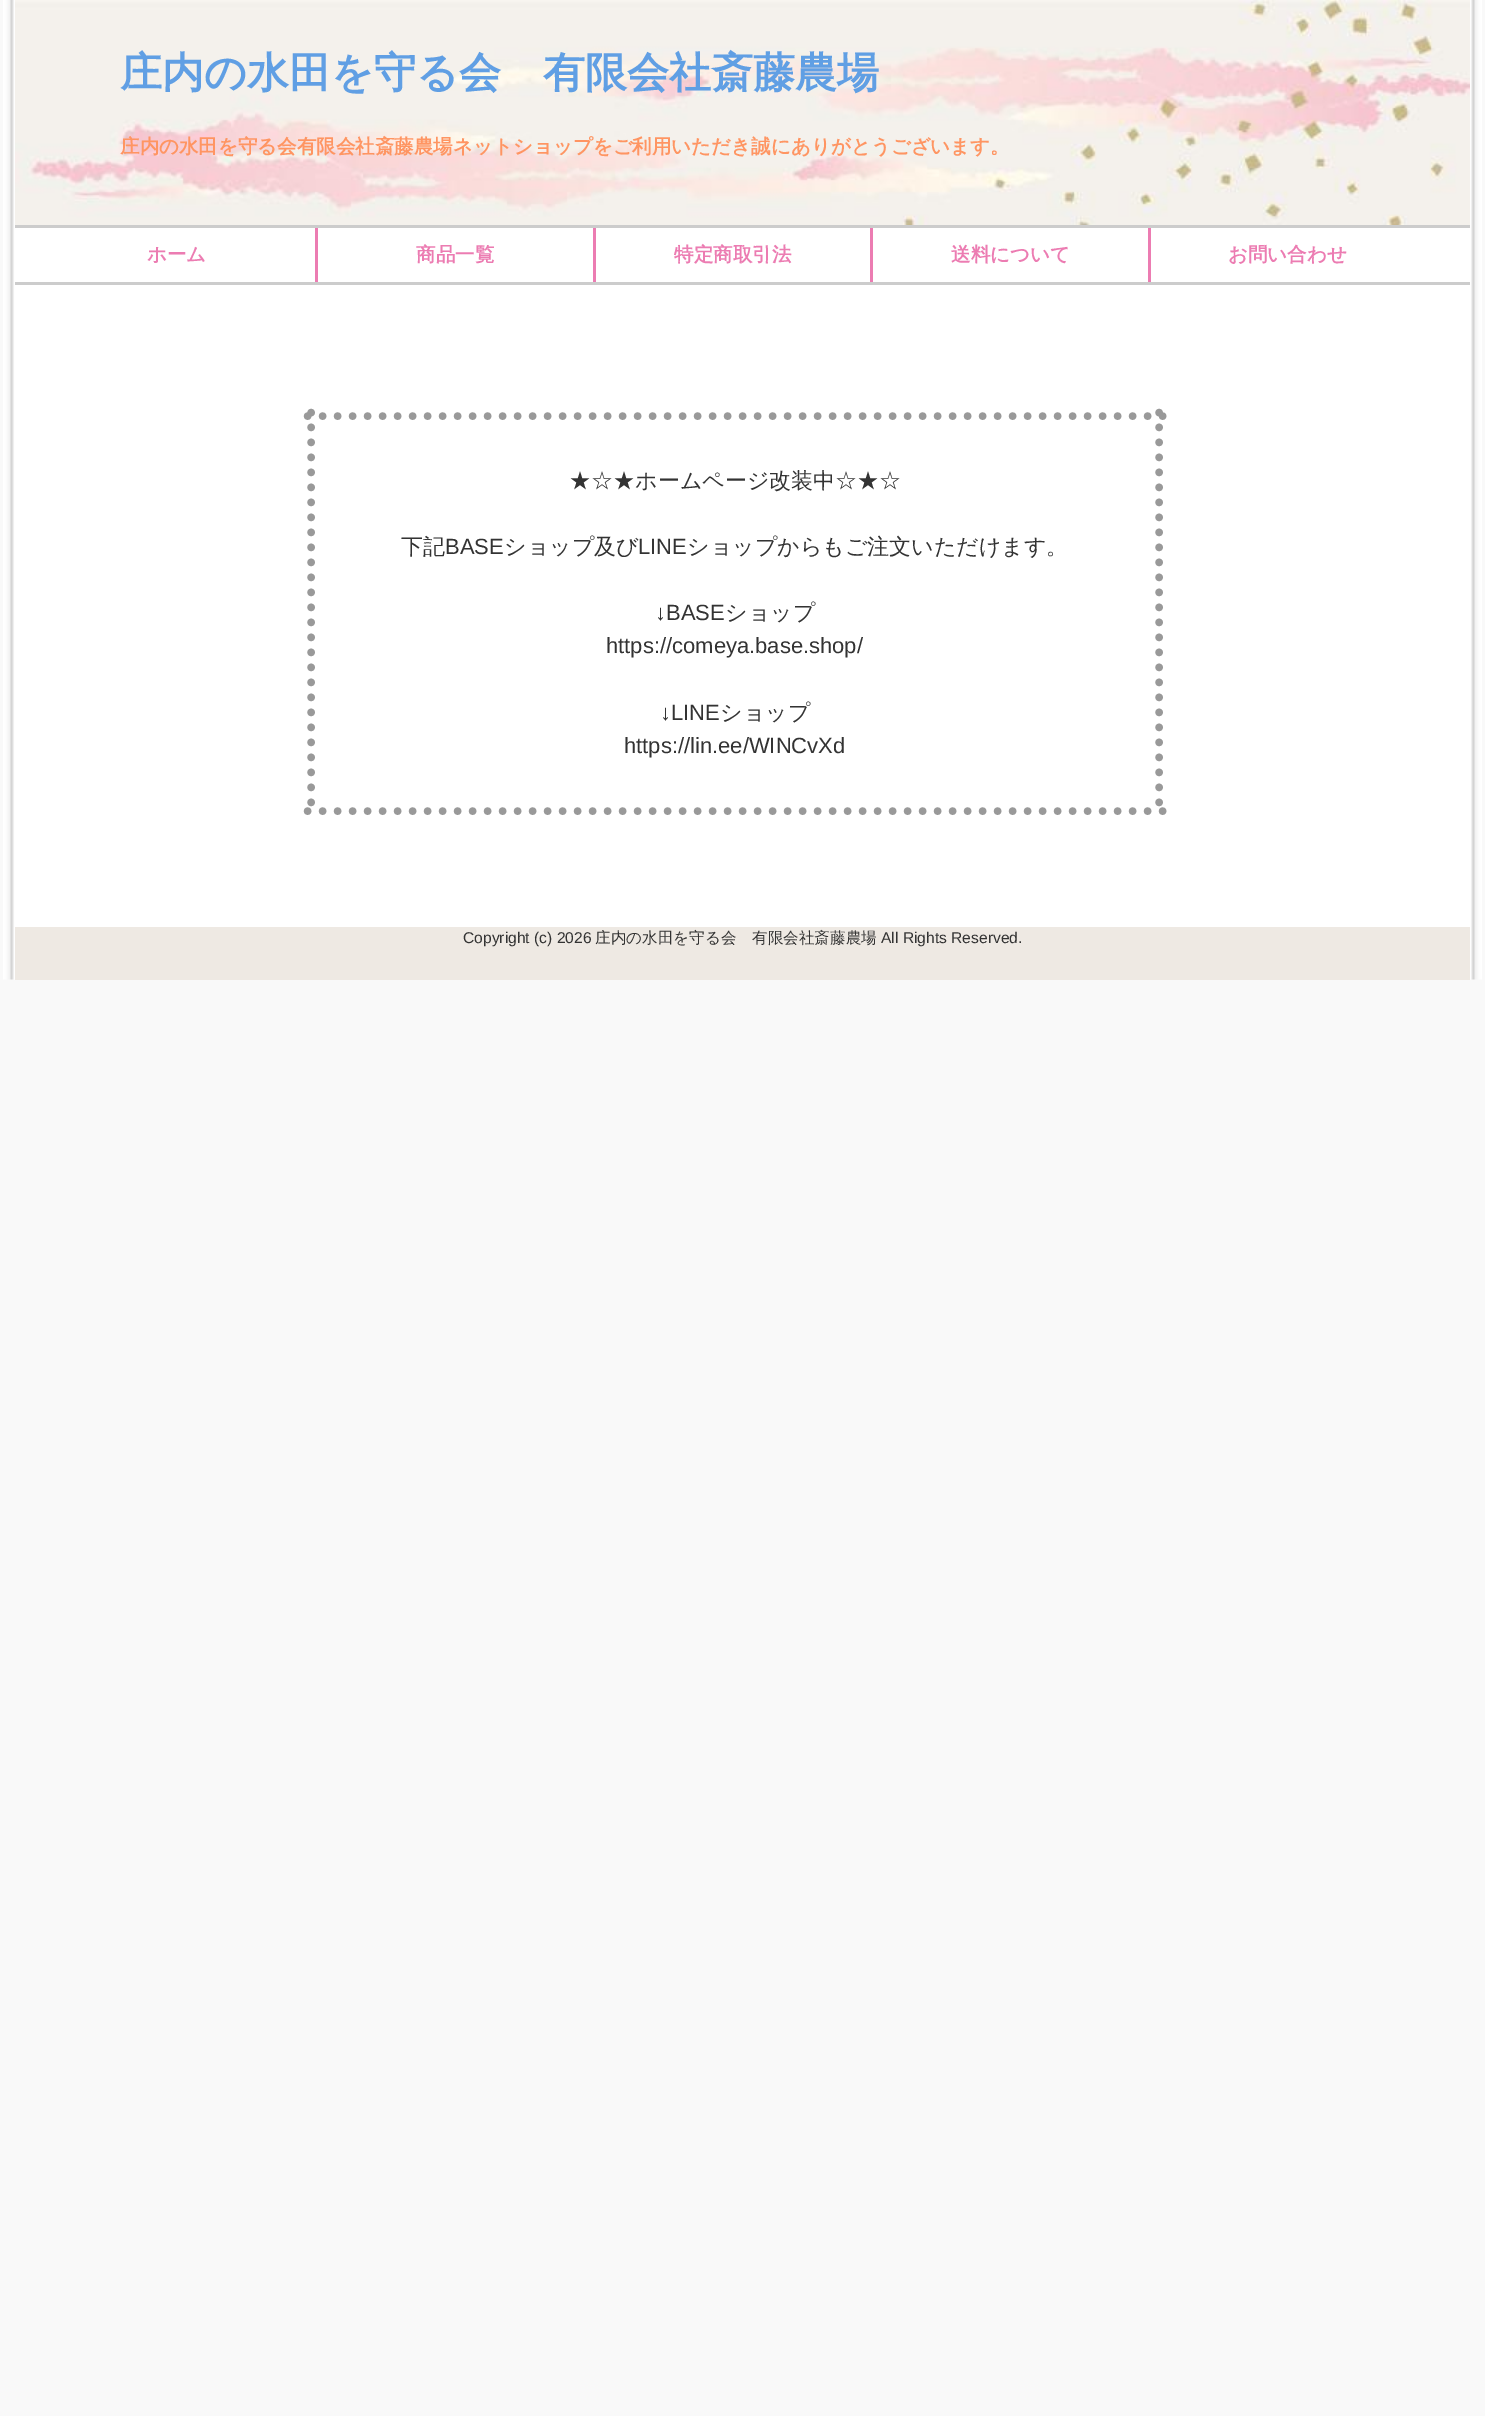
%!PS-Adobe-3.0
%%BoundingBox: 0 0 1485 2416
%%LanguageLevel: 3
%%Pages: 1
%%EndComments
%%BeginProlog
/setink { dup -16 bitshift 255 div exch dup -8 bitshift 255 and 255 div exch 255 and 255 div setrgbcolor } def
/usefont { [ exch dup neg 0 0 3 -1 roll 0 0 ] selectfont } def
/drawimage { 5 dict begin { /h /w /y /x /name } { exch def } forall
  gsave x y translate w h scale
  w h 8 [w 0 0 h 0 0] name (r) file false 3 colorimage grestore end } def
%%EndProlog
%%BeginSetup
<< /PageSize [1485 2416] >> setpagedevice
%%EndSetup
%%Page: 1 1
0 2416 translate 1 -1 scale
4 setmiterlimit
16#F9F9F9 setink
0 0 1485 2416 rectfill
(img1.raw) 3 0 1479 980 drawimage
(img2.raw) 15 0 1455 225 drawimage
/WenQuanYiZenHei-Bold 42 usefont
16#609FE4 setink
120 87 moveto (庄内の水田を守る会　有限会社斎藤農場) show
/WenQuanYiZenHei-Bold 19.5 usefont
16#FF9562 setink
120 153 moveto (庄内の水田を守る会有限会社斎藤農場ネットショップをご利用いただき誠にありがとうございます。) show
16#CCCCCC setink
15 225 1455 3 rectfill
15 282 1455 3 rectfill
16#EC7CB2 setink
147 261 moveto (ホーム) show
315 228 3 54 rectfill
416 261 moveto (商品一覧) show
593 228 3 54 rectfill
674 261 moveto (特定商取引法) show
870 228 3 54 rectfill
951 261 moveto (送料について) show
1148 228 3 54 rectfill
1228 261 moveto (お問い合わせ) show
16#999999 setink
7.5 setlinewidth
1 setlinecap
[0 15] 0 setdash
307.5 416 moveto 1162.5 416 lineto stroke
1159 412.5 moveto 1159 814.5 lineto stroke
307.5 811 moveto 1162.5 811 lineto stroke
311 412.5 moveto 311 814.5 lineto stroke
/WenQuanYiZenHei-Medium 22 usefont
16#333333 setink
569 488 moveto (★☆★ホームページ改装中☆★☆) show
401 554 moveto (下記) show
/LiberationSans-Regular 22 usefont
445 554 moveto (BASE) show
/WenQuanYiZenHei-Medium 22 usefont
504 554 moveto (ショップ及び) show
/LiberationSans-Regular 22 usefont
638 554 moveto (LINE) show
/WenQuanYiZenHei-Medium 22 usefont
687 554 moveto (ショップからもご注文いただけます。) show
/LiberationSans-Regular 22 usefont
655 620 moveto (↓BASE) show
/WenQuanYiZenHei-Medium 22 usefont
725 620 moveto (ショップ) show
/LiberationSans-Regular 22 usefont
606 653 moveto (https://comeya.base.shop/) show
660 720 moveto (↓LINE) show
/WenQuanYiZenHei-Medium 22 usefont
720 720 moveto (ショップ) show
/LiberationSans-Regular 22 usefont
624 753 moveto (https://lin.ee/WINCvXd) show
16#EEE9E3 setink
15 927 1455 53 rectfill
/LiberationSans-Regular 15.6 usefont
16#333333 setink
463 943 moveto (Copyright \(c\) 2026) show
/WenQuanYiZenHei-Medium 15.6 usefont
595 943 moveto (庄内の水田を守る会　有限会社斎藤農場) show
/LiberationSans-Regular 15.6 usefont
881 943 moveto (All Rights Reserved.) show
showpage
%%EOF
